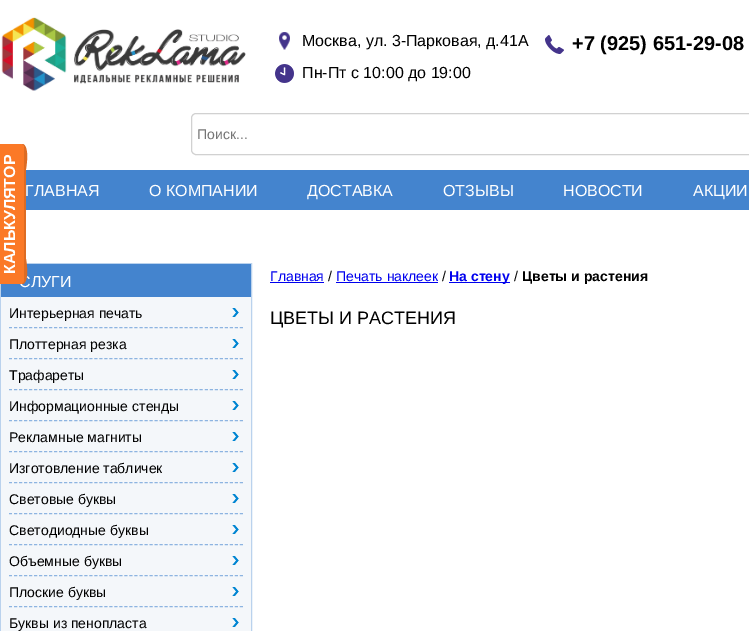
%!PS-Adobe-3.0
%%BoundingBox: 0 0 749 631
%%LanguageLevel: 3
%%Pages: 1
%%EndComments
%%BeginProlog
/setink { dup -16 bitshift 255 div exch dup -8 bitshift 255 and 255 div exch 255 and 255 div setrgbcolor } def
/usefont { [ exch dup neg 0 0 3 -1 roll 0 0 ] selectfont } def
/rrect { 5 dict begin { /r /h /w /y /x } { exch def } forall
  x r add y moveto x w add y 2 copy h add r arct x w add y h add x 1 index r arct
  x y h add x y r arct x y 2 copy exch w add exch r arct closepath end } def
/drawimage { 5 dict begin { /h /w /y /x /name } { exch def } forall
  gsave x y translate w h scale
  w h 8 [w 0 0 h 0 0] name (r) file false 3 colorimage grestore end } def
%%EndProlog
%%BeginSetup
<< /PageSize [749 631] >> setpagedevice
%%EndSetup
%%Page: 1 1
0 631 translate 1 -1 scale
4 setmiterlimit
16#FFFFFF setink
0 0 749 631 rectfill
(img1.raw) 1 17 245 74 drawimage
(img2.raw) 279 32 11 18 drawimage
/LiberationSans-Regular 16 usefont
16#000000 setink
302 46 moveto (Москва, ул. 3-Парковая, д.41А) show
(img3.raw) 275 64 19 19 drawimage
302 78 moveto (Пн-Пт с 10:00 до 19:00) show
(img4.raw) 545 35 19 19 drawimage
/LiberationSans-Bold 20 usefont
572 50 moveto (+7 \(925\) 651-29-08) show
16#D1D1D1 setink
191.5 113.5 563 41 4.5 rrect stroke
/LiberationSans-Regular 14 usefont
16#757575 setink
197 139 moveto (Поиск...) show
16#4484CE setink
26 170 723 40 rectfill
/LiberationSans-Regular 16 usefont
16#FFFFFF setink
[
    [(ГЛАВНАЯ) 25 196]
    [(О КОМПАНИИ) 149 196]
    [(ДОСТАВКА) 307 196]
    [(ОТЗЫВЫ) 443 196]
    [(НОВОСТИ) 563 196]
    [(АКЦИИ) 693 196]
] { aload pop moveto show } forall
16#BAD2ED setink
0.5 263.5 251 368 rectstroke
16#4484CE setink
1 264 250 33 rectfill
16#FFFFFF setink
19 287 moveto (СЛУГИ) show
16#F4F7FA setink
1 297 250 334 rectfill
16#8DB4E1 setink
[3 2.02] 0 setdash
9 327.5 moveto 243 327.5 lineto stroke
/LiberationSans-Regular 14 usefont
16#000000 setink
9 318 moveto (Интерьерная печать) show
(img5.raw) 232 308 7 9 drawimage
16#8DB4E1 setink
9 358.5 moveto 243 358.5 lineto stroke
16#000000 setink
9 349 moveto (Плоттерная резка) show
(img5.raw) 232 339 7 9 drawimage
16#8DB4E1 setink
9 389.5 moveto 243 389.5 lineto stroke
16#000000 setink
9 380 moveto (Трафареты) show
(img5.raw) 232 370 7 9 drawimage
16#8DB4E1 setink
9 420.5 moveto 243 420.5 lineto stroke
16#000000 setink
9 411 moveto (Информационные стенды) show
(img5.raw) 232 401 7 9 drawimage
16#8DB4E1 setink
9 451.5 moveto 243 451.5 lineto stroke
16#000000 setink
9 442 moveto (Рекламные магниты) show
(img5.raw) 232 432 7 9 drawimage
16#8DB4E1 setink
9 482.5 moveto 243 482.5 lineto stroke
16#000000 setink
9 473 moveto (Изготовление табличек) show
(img5.raw) 232 463 7 9 drawimage
16#8DB4E1 setink
9 513.5 moveto 243 513.5 lineto stroke
16#000000 setink
9 504 moveto (Световые буквы) show
(img5.raw) 232 494 7 9 drawimage
16#8DB4E1 setink
9 544.5 moveto 243 544.5 lineto stroke
16#000000 setink
9 535 moveto (Светодиодные буквы) show
(img5.raw) 232 525 7 9 drawimage
16#8DB4E1 setink
9 575.5 moveto 243 575.5 lineto stroke
16#000000 setink
9 566 moveto (Объемные буквы) show
(img5.raw) 232 556 7 9 drawimage
16#8DB4E1 setink
9 606.5 moveto 243 606.5 lineto stroke
16#000000 setink
9 597 moveto (Плоские буквы) show
(img5.raw) 232 587 7 9 drawimage
9 628 moveto (Буквы из пенопласта) show
(img5.raw) 232 618 7 9 drawimage
16#0000EE setink
270 281 moveto (Главная) show
270 282 54 1 rectfill
16#000000 setink
328 281 moveto (/) show
16#0000EE setink
336 281 moveto (Печать наклеек) show
336 282 102 1 rectfill
16#000000 setink
442 281 moveto (/) show
16#0000EE setink
449 282 61 1 rectfill
/LiberationSans-Bold 14 usefont
449 281 moveto (На стену) show
/LiberationSans-Regular 14 usefont
16#000000 setink
514 281 moveto (/) show
/LiberationSans-Bold 14 usefont
522 281 moveto (Цветы и растения) show
/LiberationSans-Regular 18 usefont
270 324 moveto (ЦВЕТЫ И РАСТЕНИЯ) show
16#DD6C24 setink
0 144 moveto 21 144 lineto 22 144 24 146 24 147 curveto 24 281 lineto 24 282 22 284 21 284 curveto 0 284 lineto 23 284 lineto 30 281 26 259 26 259 curveto 26 169 lineto 26 169 30 147 23 144 curveto closepath fill
16#FB7927 setink
-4 281 moveto -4 147 lineto -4 146 -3 144 -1 144 curveto 21 144 lineto 22 144 24 146 24 147 curveto 24 281 lineto 24 282 22 284 21 284 curveto -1 284 lineto -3 284 -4 282 -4 281 curveto closepath fill
/LiberationSans-Bold 16 usefont
16#FFFFFF setink
gsave 15 274 translate -90 rotate 0 0 moveto (КАЛЬКУЛЯТОР) show grestore
showpage
%%EOF
